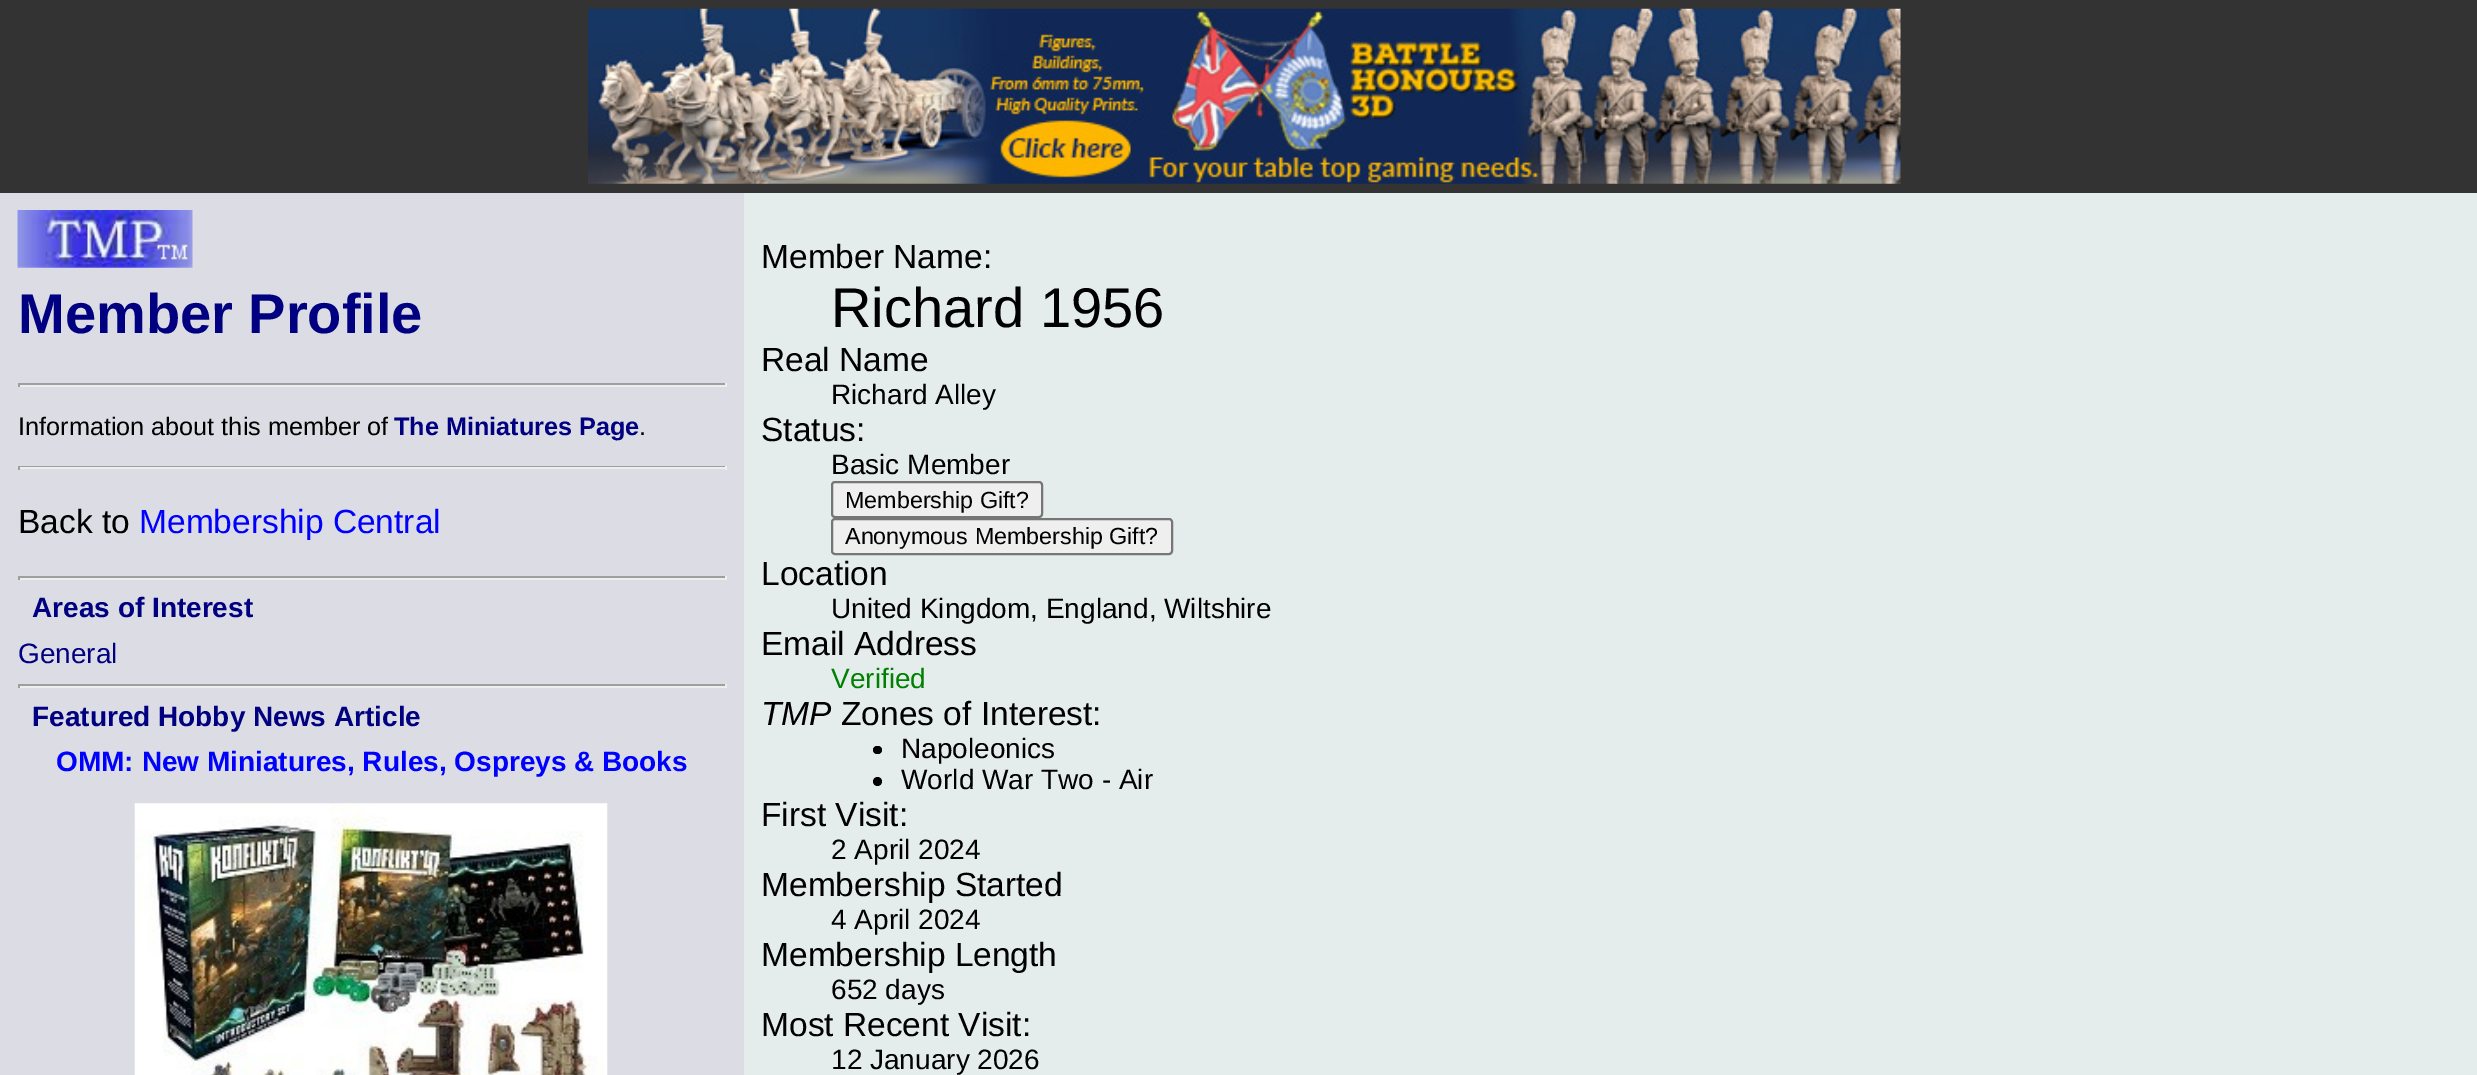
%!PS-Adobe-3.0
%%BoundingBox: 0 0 2477 1075
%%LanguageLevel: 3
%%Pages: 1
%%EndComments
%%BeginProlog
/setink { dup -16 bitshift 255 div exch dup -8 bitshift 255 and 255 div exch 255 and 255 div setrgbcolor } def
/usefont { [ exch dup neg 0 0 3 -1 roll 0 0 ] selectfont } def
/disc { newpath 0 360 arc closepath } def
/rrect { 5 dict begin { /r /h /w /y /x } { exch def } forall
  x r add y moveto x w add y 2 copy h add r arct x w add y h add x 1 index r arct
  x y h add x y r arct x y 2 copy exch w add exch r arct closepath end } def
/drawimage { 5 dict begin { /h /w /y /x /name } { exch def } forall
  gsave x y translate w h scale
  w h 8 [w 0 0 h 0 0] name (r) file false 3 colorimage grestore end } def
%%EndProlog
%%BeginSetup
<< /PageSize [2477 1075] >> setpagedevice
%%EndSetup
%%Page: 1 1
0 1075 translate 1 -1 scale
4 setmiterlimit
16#E4EDEC setink
0 0 2477 1075 rectfill
16#333333 setink
0 0 2477 193 rectfill
(img1.raw) 588 8 1313 176 drawimage
16#DCDDE4 setink
0 193 744 882 rectfill
(img2.raw) 17 210 176 58 drawimage
/LiberationSans-Bold 56 usefont
16#000080 setink
18 333 moveto (Member Profile) show
[
    [18 383 708 2 16#9F9F9F]
    [725 383 2 4 16#EEEEEE]
    [18 385 708 2 16#EEEEEE]
    [18 383 2 4 16#9F9F9F]
] { aload pop setink rectfill } forall
/LiberationSans-Regular 25.25 usefont
16#000000 setink
18 435 moveto (Information about this member of) show
/LiberationSans-Bold 25.25 usefont
16#000080 setink
394 435 moveto (The Miniatures Page) show
/LiberationSans-Regular 25.25 usefont
16#000000 setink
639 435 moveto (.) show
[
    [18 466 708 1 16#9F9F9F]
    [725 466 2 4 16#EEEEEE]
    [18 467 708 2 16#EEEEEE]
    [18 466 2 4 16#9F9F9F]
] { aload pop setink rectfill } forall
/LiberationSans-Regular 33.5 usefont
16#000000 setink
18 533 moveto (Back to) show
16#0000FF setink
139 533 moveto (Membership Central) show
[
    [18 576 708 2 16#9F9F9F]
    [725 576 2 4 16#EEEEEE]
    [18 578 708 2 16#EEEEEE]
    [18 576 2 4 16#9F9F9F]
] { aload pop setink rectfill } forall
/LiberationSans-Bold 28 usefont
16#000080 setink
32 617 moveto (Areas of Interest) show
/LiberationSans-Regular 28 usefont
18 663 moveto (General) show
[
    [18 684 708 2 16#9F9F9F]
    [725 684 2 4 16#EEEEEE]
    [18 686 708 2 16#EEEEEE]
    [18 684 2 4 16#9F9F9F]
] { aload pop setink rectfill } forall
/LiberationSans-Bold 28 usefont
16#000080 setink
32 726 moveto (Featured Hobby News Article) show
16#0000FF setink
56 771 moveto (OMM: New Miniatures, Rules, Ospreys & Books) show
(img3.raw) 134 803 474 272 drawimage
/LiberationSans-Regular 33.5 usefont
16#000000 setink
761 268 moveto (Member Name:) show
/LiberationSans-Regular 56 usefont
831 327 moveto (Richard 1956) show
/LiberationSans-Regular 33.5 usefont
761 371 moveto (Real Name) show
/LiberationSans-Regular 28 usefont
831 404 moveto (Richard Alley) show
/LiberationSans-Regular 33.5 usefont
761 441 moveto (Status:) show
/LiberationSans-Regular 28 usefont
831 474 moveto (Basic Member) show
16#EFEFEF setink
832 482 210 35 3 rrect gsave fill grestore
16#767676 setink
2 setlinewidth
stroke
/LiberationSans-Regular 23.3 usefont
16#000000 setink
845 508 moveto (Membership Gift?) show
16#EFEFEF setink
832 519 340 35 3 rrect gsave fill grestore
16#767676 setink
stroke
16#000000 setink
845 544 moveto (Anonymous Membership Gift?) show
/LiberationSans-Regular 33.5 usefont
761 585 moveto (Location) show
/LiberationSans-Regular 28 usefont
831 618 moveto (United Kingdom, England, Wiltshire) show
/LiberationSans-Regular 33.5 usefont
761 655 moveto (Email Address) show
/LiberationSans-Regular 28 usefont
16#008000 setink
831 688 moveto (Verified) show
/LiberationSans-Italic 33.5 usefont
16#000000 setink
761 725 moveto (TMP) show
/LiberationSans-Regular 33.5 usefont
841 725 moveto (Zones of Interest:) show
873 746 9 8 4 rrect fill
/LiberationSans-Regular 28 usefont
901 758 moveto (Napoleonics) show
877.5 781.5 4.5 disc fill
901 789 moveto (World War Two - Air) show
/LiberationSans-Regular 33.5 usefont
761 826 moveto (First Visit:) show
/LiberationSans-Regular 28 usefont
831 859 moveto (2 April 2024) show
/LiberationSans-Regular 33.5 usefont
761 896 moveto (Membership Started) show
/LiberationSans-Regular 28 usefont
831 929 moveto (4 April 2024) show
/LiberationSans-Regular 33.5 usefont
761 966 moveto (Membership Length) show
/LiberationSans-Regular 28 usefont
831 999 moveto (652 days) show
/LiberationSans-Regular 33.5 usefont
761 1036 moveto (Most Recent Visit:) show
/LiberationSans-Regular 28 usefont
831 1069 moveto (12 January 2026) show
showpage
%%EOF
